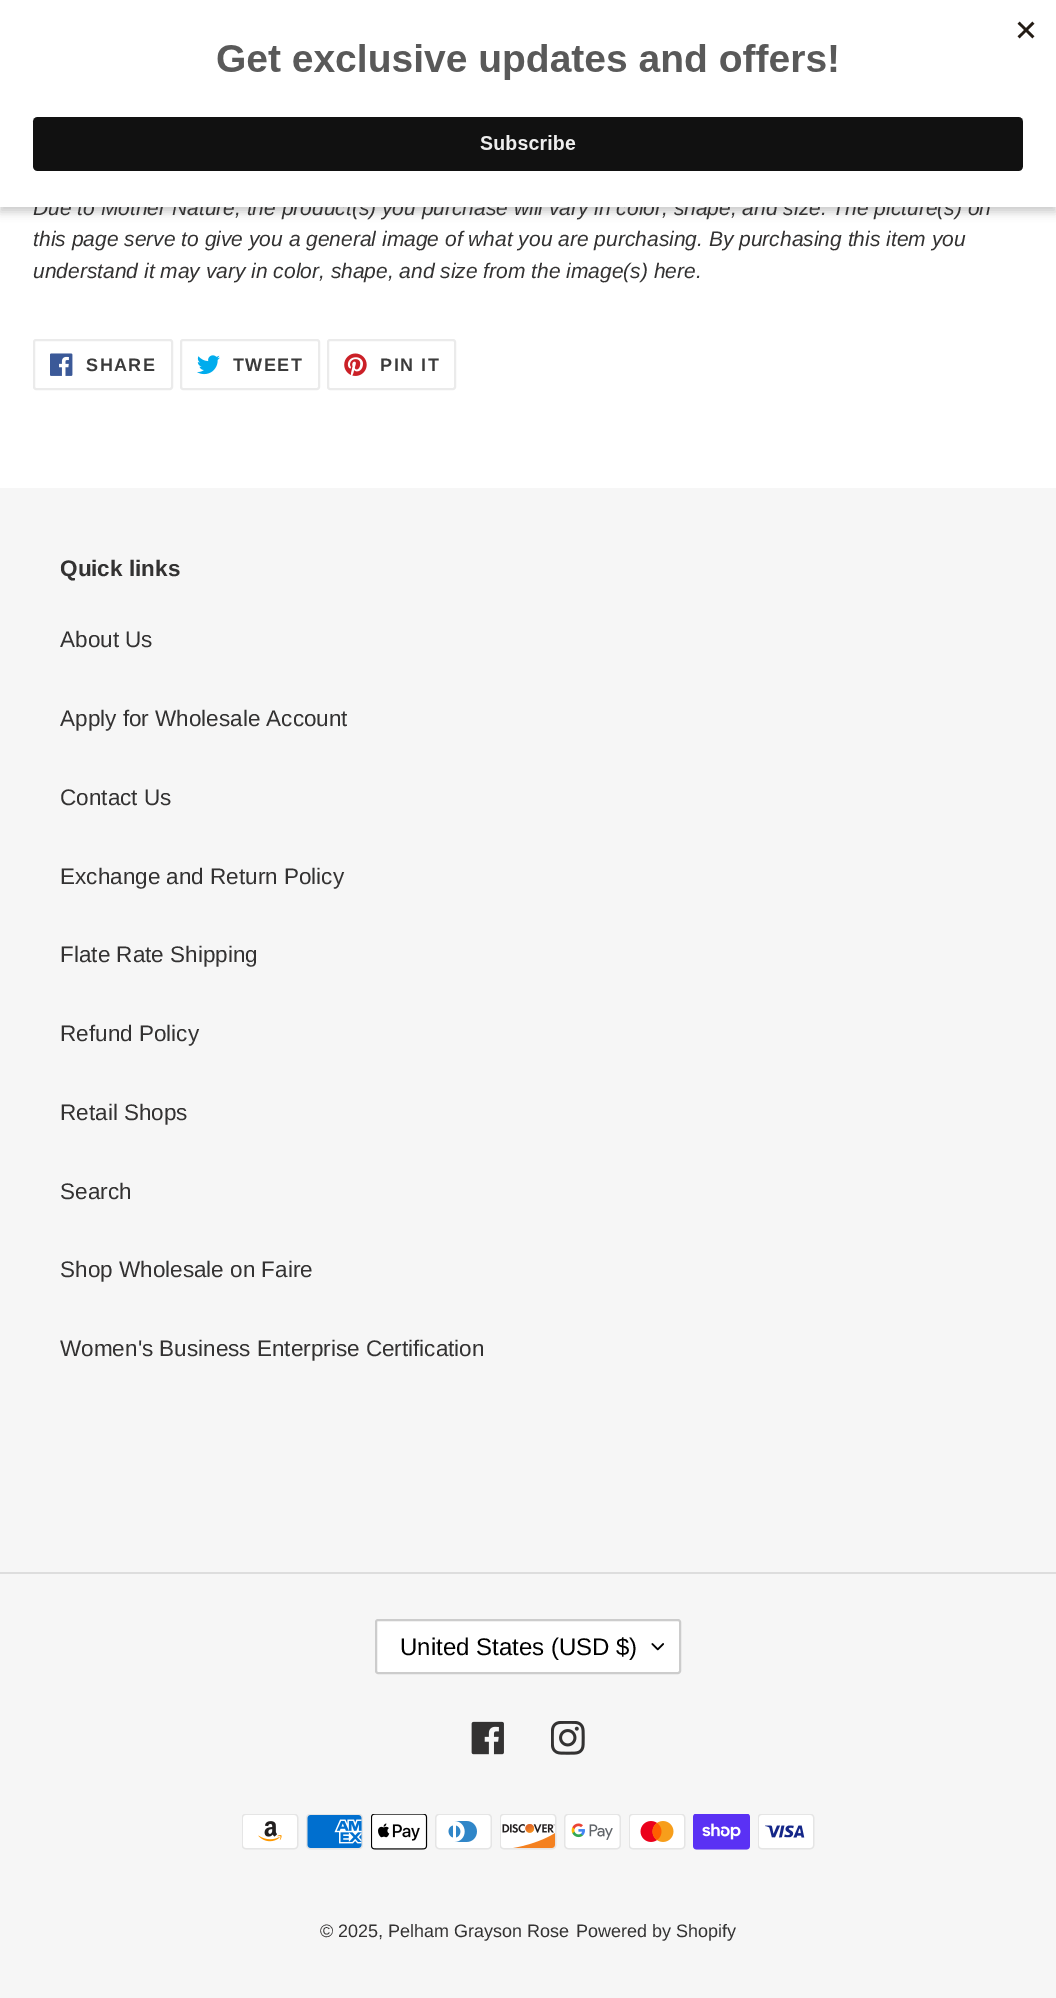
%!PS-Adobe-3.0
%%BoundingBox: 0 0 1056 1998
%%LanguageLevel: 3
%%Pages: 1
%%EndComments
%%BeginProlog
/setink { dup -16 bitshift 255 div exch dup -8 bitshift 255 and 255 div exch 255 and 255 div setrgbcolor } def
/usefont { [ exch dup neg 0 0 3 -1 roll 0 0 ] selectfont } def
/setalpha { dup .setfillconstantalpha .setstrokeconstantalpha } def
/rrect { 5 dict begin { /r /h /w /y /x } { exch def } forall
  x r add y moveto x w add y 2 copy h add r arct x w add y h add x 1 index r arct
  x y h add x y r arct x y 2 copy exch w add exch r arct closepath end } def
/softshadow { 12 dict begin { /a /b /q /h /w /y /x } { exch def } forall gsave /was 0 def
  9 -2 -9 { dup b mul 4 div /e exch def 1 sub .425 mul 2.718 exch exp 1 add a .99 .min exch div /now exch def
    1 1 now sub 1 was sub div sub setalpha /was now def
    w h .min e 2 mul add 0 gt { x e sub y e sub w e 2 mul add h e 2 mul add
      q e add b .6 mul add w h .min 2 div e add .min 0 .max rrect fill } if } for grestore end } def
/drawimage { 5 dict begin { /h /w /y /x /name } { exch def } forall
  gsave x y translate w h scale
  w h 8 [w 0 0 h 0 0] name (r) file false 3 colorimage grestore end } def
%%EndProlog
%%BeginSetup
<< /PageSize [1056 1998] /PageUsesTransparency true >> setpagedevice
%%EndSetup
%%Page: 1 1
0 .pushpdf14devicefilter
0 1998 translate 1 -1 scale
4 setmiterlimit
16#FFFFFF setink
0 0 1056 1998 rectfill
16#000000 setink
0 5 1056 207 0 4.5 0.2 softshadow
/LiberationSans-Italic 21 usefont
16#333232 setink
33 215 moveto (Due to Mother Nature, the product\(s\) you purchase will vary in color, shape, and size. The picture\(s\) on) show
16#FFFFFF setink
0 0 1056 207 rectfill
(img1.raw) 32 21 1003 150 drawimage
16#333232 setink
33 246 moveto (this page serve to give you a general image of what you are purchasing. By purchasing this item you) show
33 278 moveto (understand it may vary in color, shape, and size from the image\(s\) here.) show
16#EBEBEB setink
2 setlinewidth
34 340 138 49 2 rrect stroke
(img2.raw) 50 353 23 23 drawimage
/LiberationSans-Bold 18 usefont
16#3A3A3A setink
86 371 moveto 1.5 0 (SHARE) ashow
16#EBEBEB setink
181 340 138 49 2 rrect stroke
(img3.raw) 197 355 23 20 drawimage
16#3A3A3A setink
233 371 moveto 1.5 0 (TWEET) ashow
16#EBEBEB setink
328 340 127 49 2 rrect stroke
(img4.raw) 344 353 23 23 drawimage
16#3A3A3A setink
380 371 moveto 1.5 0 (PIN IT) ashow
16#F6F6F6 setink
0 488 1056 1510 rectfill
/LiberationSans-Bold 22.5 usefont
16#333232 setink
60 576 moveto (Quick links) show
/LiberationSans-Regular 22.5 usefont
[
    [(About Us) 60 647]
    [(Apply for Wholesale Account) 60 726]
    [(Contact Us) 60 805]
    [(Exchange and Return Policy) 60 884]
    [(Flate Rate Shipping) 60 962]
    [(Refund Policy) 60 1041]
    [(Retail Shops) 60 1120]
    [(Search) 60 1199]
    [(Shop Wholesale on Faire) 60 1277]
    [(Women's Business Enterprise Certification) 60 1356]
] { aload pop moveto show } forall
16#DDDDDD setink
0 1572 1056 2 rectfill
16#FFFFFF setink
375 1619 306 55 3 rrect fill
(img5.raw) 651 1643 13 8 drawimage
16#CCCCCC setink
376 1620 304 53 2 rrect stroke
/LiberationSans-Regular 24 usefont
16#000000 setink
400 1655 moveto (United States \(USD $\)) show
(img6.raw) 471 1721 33 34 drawimage
(img7.raw) 551 1721 34 34 drawimage
(img8.raw) 242 1814 57 36 drawimage
(img9.raw) 306 1814 57 36 drawimage
(img10.raw) 371 1814 57 36 drawimage
(img11.raw) 435 1814 57 36 drawimage
(img12.raw) 500 1814 57 36 drawimage
(img13.raw) 564 1814 57 36 drawimage
(img14.raw) 629 1814 57 36 drawimage
(img15.raw) 693 1814 57 36 drawimage
(img16.raw) 758 1814 57 36 drawimage
/LiberationSans-Regular 18 usefont
16#333232 setink
320 1937 moveto (© 2025, Pelham Grayson Rose) show
576 1937 moveto (Powered by Shopify) show
.poppdf14devicefilter showpage
%%EOF
